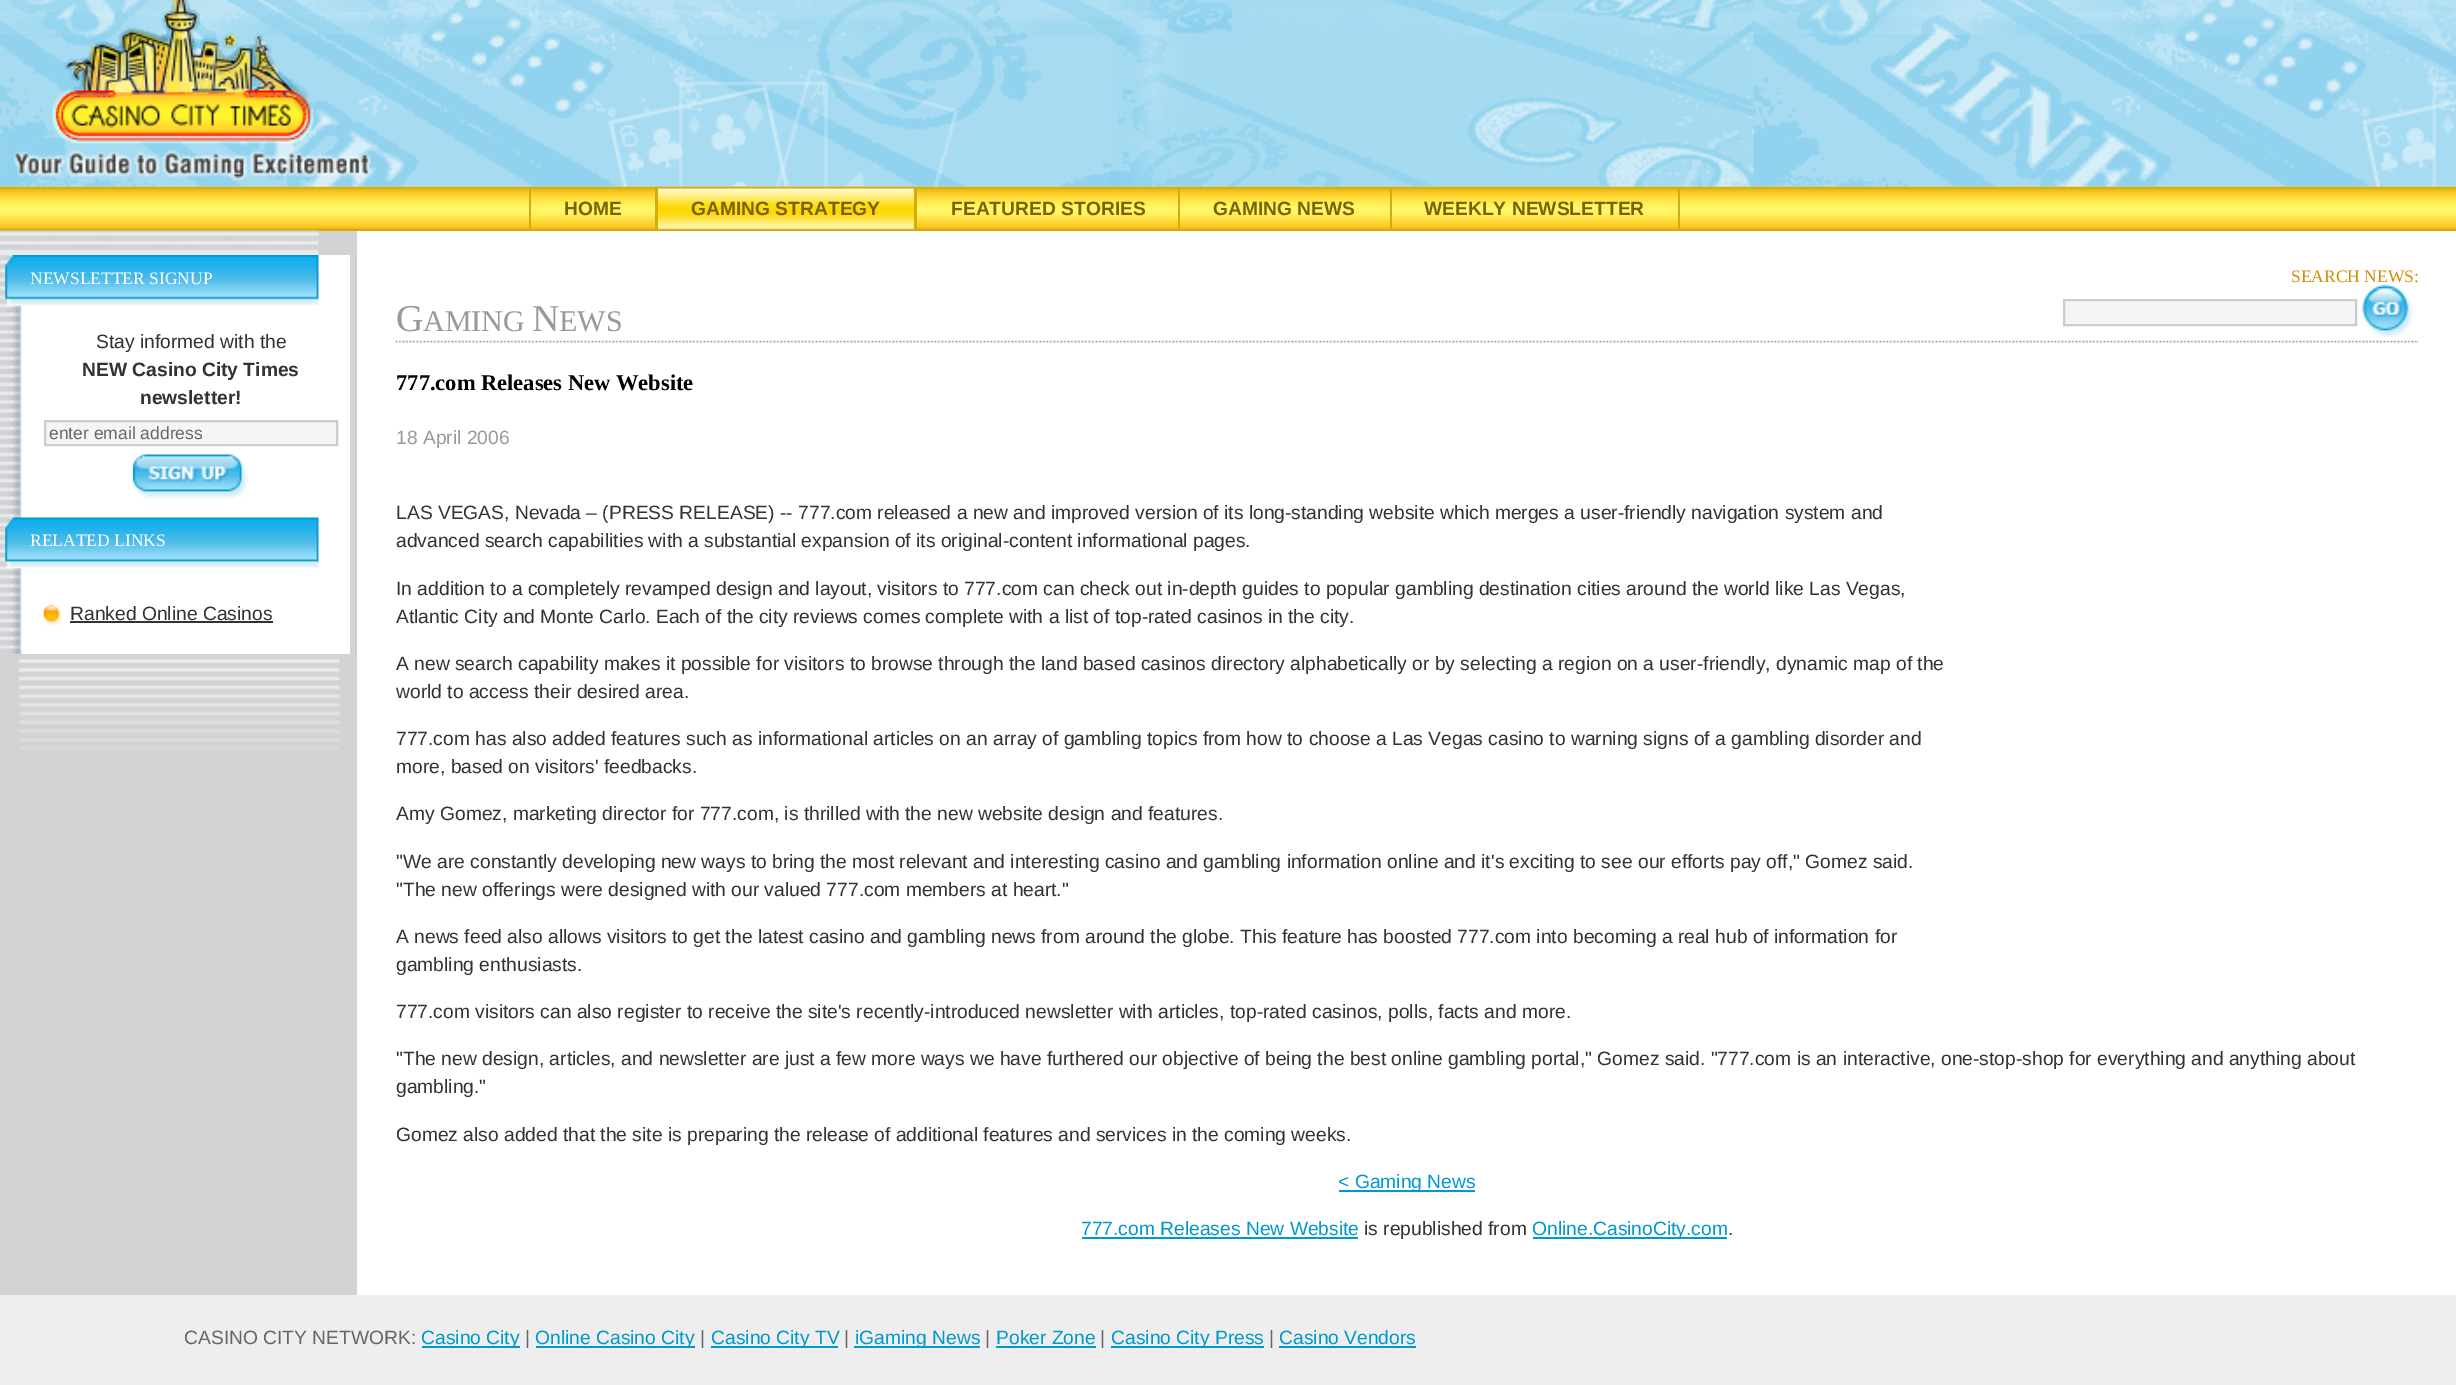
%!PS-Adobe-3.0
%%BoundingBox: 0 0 2456 1385
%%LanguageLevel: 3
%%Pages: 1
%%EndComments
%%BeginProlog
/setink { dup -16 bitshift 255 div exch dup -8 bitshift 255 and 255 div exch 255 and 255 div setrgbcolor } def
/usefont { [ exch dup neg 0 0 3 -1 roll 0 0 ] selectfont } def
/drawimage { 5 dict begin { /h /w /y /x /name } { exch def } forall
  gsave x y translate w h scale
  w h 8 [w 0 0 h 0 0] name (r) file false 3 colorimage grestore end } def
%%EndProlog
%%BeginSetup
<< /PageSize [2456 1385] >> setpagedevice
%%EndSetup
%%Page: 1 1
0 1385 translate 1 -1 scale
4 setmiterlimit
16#FFFFFF setink
0 0 2456 1385 rectfill
(img1.raw) 0 0 2456 187 drawimage
(img2.raw) 13 0 358 181 drawimage
16#D5AC0D setink
0 229 2456 2 rectfill
(img3.raw) 0 186 2456 43 drawimage
655 187 1 44 rectfill
529 187 2 44 rectfill
/LiberationSans-Bold 19.25 usefont
16#7B6304 setink
564 215 moveto (HOME) show
(img4.raw) 656 186 260 44 drawimage
16#D5AC0D setink
914 187 3 44 rectfill
656 187 2 44 rectfill
16#7B6304 setink
691 215 moveto (GAMING STRATEGY) show
16#D5AC0D setink
1178 187 2 44 rectfill
16#7B6304 setink
951 215 moveto (FEATURED STORIES) show
16#D5AC0D setink
1390 187 2 44 rectfill
16#7B6304 setink
1213 215 moveto (GAMING NEWS) show
16#D5AC0D setink
1678 187 2 44 rectfill
16#7B6304 setink
1424 215 moveto (WEEKLY NEWSLETTER) show
16#D1D3D4 setink
0 231 357 1064 rectfill
(img5.raw) 0 230 319 25 drawimage
(img6.raw) 19 659 321 91 drawimage
(img7.raw) 0 255 350 399 drawimage
16#CCCCCC setink
355 256 2 399 rectfill
(img8.raw) 5 255 314 51 drawimage
/LiberationSerif-Regular 17.5 usefont
16#FFFFFF setink
30 284 moveto (NEWSLETTER SIGNUP) show
/LiberationSans-Regular 19.25 usefont
16#333333 setink
96 348 moveto (Stay informed with the) show
/LiberationSans-Bold 19.25 usefont
82 376 moveto (NEW Casino City Times) show
140 404 moveto (newsletter!) show
16#F5F5F5 setink
45 421 moveto 337 421 lineto 337 445 lineto 45 445 lineto closepath gsave fill grestore
16#CCCCCC setink
2 setlinewidth
stroke
/LiberationSans-Regular 17.5 usefont
16#666666 setink
49 439 moveto (enter email address) show
(img9.raw) 133 454 115 46 drawimage
(img10.raw) 5 517 314 52 drawimage
/LiberationSerif-Regular 17.5 usefont
16#FFFFFF setink
30 546 moveto (RELATED LINKS) show
(img11.raw) 43 605 20 21 drawimage
/LiberationSans-Regular 19.25 usefont
16#333333 setink
70 620 moveto (Ranked Online Casinos) show
70 621 203 2 rectfill
/LiberationSerif-Regular 17.5 usefont
16#CE8E04 setink
2291 282 moveto (SEARCH NEWS:) show
16#F5F5F5 setink
2064 300 moveto 2356 300 lineto 2356 325 lineto 2064 325 lineto closepath gsave fill grestore
16#CCCCCC setink
stroke
(img12.raw) 2362 284 51 53 drawimage
/LiberationSerif-Regular 38 usefont
16#999999 setink
396 331 moveto (G) show
/LiberationSerif-Regular 30 usefont
423 331 moveto (AMING) show
/LiberationSerif-Regular 38 usefont
532 331 moveto (N) show
/LiberationSerif-Regular 30 usefont
559 331 moveto (EWS) show
(img13.raw) 395 340 2024 3 drawimage
/LiberationSerif-Bold 22.5 usefont
16#000000 setink
396 390 moveto (777.com Releases New Website) show
/LiberationSans-Regular 19.25 usefont
16#999999 setink
396 444 moveto (18 April 2006) show
16#333333 setink
[
    [(LAS VEGAS, Nevada – \(PRESS RELEASE\) -- 777.com released a new and improved version of its long-standing website which merges a user-friendly navigation system and) 396 519]
    [(advanced search capabilities with a substantial expansion of its original-content informational pages.) 396 547]
    [(In addition to a completely revamped design and layout, visitors to 777.com can check out in-depth guides to popular gambling destination cities around the world like Las Vegas,) 396 595]
    [(Atlantic City and Monte Carlo. Each of the city reviews comes complete with a list of top-rated casinos in the city.) 396 623]
    [(A new search capability makes it possible for visitors to browse through the land based casinos directory alphabetically or by selecting a region on a user-friendly, dynamic map of the) 396 670]
    [(world to access their desired area.) 396 698]
    [(777.com has also added features such as informational articles on an array of gambling topics from how to choose a Las Vegas casino to warning signs of a gambling disorder and) 396 745]
    [(more, based on visitors' feedbacks.) 396 773]
    [(Amy Gomez, marketing director for 777.com, is thrilled with the new website design and features.) 396 820]
    [("We are constantly developing new ways to bring the most relevant and interesting casino and gambling information online and it's exciting to see our efforts pay off," Gomez said.) 396 868]
    [("The new offerings were designed with our valued 777.com members at heart.") 396 896]
    [(A news feed also allows visitors to get the latest casino and gambling news from around the globe. This feature has boosted 777.com into becoming a real hub of information for) 396 943]
    [(gambling enthusiasts.) 396 971]
    [(777.com visitors can also register to receive the site's recently-introduced newsletter with articles, top-rated casinos, polls, facts and more.) 396 1018]
    [("The new design, articles, and newsletter are just a few more ways we have furthered our objective of being the best online gambling portal," Gomez said. "777.com is an interactive, one-stop-shop for everything and anything about) 396 1065]
    [(gambling.") 396 1093]
    [(Gomez also added that the site is preparing the release of additional features and services in the coming weeks.) 396 1141]
] { aload pop moveto show } forall
16#0099CC setink
1339 1190 136 2 rectfill
1338 1188 moveto (< Gaming News) show
1081 1235 moveto (777.com Releases New Website) show
1082 1237 276 2 rectfill
16#333333 setink
1364 1235 moveto (is republished from) show
16#0099CC setink
1533 1237 194 2 rectfill
1532 1235 moveto (Online.CasinoCity.com) show
16#333333 setink
1728 1235 moveto (.) show
16#EEEEEE setink
0 1295 2456 90 rectfill
16#666666 setink
184 1344 moveto (CASINO CITY NETWORK:) show
16#0099CC setink
422 1346 98 2 rectfill
421 1344 moveto (Casino City) show
16#666666 setink
525 1344 moveto (|) show
16#0099CC setink
536 1346 159 2 rectfill
535 1344 moveto (Online Casino City) show
16#666666 setink
700 1344 moveto (|) show
16#0099CC setink
711 1346 127 2 rectfill
711 1344 moveto (Casino City TV) show
16#666666 setink
844 1344 moveto (|) show
16#0099CC setink
854 1346 126 2 rectfill
855 1344 moveto (iGaming News) show
16#666666 setink
985 1344 moveto (|) show
16#0099CC setink
996 1344 moveto (Poker Zone) show
996 1346 100 2 rectfill
16#666666 setink
1100 1344 moveto (|) show
16#0099CC setink
1111 1346 153 2 rectfill
1111 1344 moveto (Casino City Press) show
16#666666 setink
1269 1344 moveto (|) show
16#0099CC setink
1279 1344 moveto (Casino Vendors) show
1279 1346 137 2 rectfill
showpage
%%EOF
